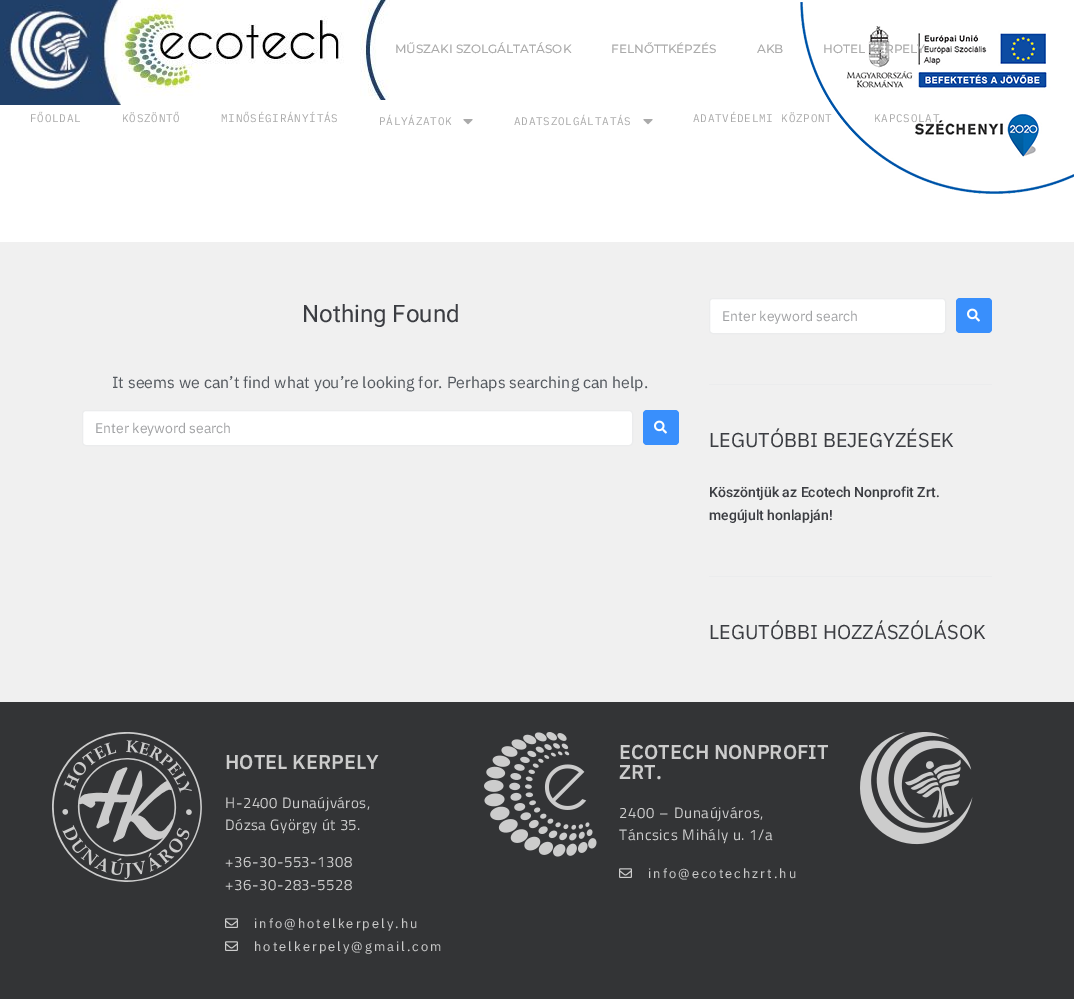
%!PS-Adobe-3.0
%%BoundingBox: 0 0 1074 999
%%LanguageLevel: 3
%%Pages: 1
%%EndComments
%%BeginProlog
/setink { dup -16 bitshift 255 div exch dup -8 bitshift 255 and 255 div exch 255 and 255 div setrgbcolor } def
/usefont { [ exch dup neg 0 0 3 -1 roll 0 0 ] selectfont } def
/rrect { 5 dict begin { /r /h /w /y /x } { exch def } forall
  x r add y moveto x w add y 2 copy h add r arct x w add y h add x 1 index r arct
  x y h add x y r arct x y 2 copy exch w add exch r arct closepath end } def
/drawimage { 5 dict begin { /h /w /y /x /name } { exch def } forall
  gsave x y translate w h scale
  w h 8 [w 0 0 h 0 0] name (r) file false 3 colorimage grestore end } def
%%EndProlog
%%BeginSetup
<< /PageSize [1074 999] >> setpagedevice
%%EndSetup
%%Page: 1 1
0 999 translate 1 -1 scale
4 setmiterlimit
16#F0F0F0 setink
0 0 1074 999 rectfill
16#FFFFFF setink
120 0 954 100 rectfill
(img2.raw) 120 0 224 96 drawimage
0 100 1074 142 rectfill
(img1.raw) 0 0 121 105 drawimage
(img3.raw) 360 0 30 100 drawimage
/Montserrat-Medium 12 usefont
16#AAAAAA setink
[
    [(MŰSZAKI SZOLGÁLTATÁSOK) 395 53]
    [(FELNŐTTKÉPZÉS) 611 53]
    [(AKB) 757 53]
] { aload pop moveto show } forall
(img4.raw) 800 2 274 192 drawimage
823 53 moveto (HOTEL KERPELY) show
/IBMPlexMono-Regular 11 usefont
30 122 moveto 0.75 0 (FŐOLDAL) ashow
122 122 moveto 0.75 0 (KÖSZÖNTŐ) ashow
221 122 moveto 0.75 0 (MINŐSÉGIRÁNYÍTÁS) ashow
379 125 moveto 0.75 0 (PÁLYÁZATOK) ashow
(img5.raw) 463 119 10 6 drawimage
514 125 moveto 0.75 0 (ADATSZOLGÁLTATÁS) ashow
(img5.raw) 643 119 10 6 drawimage
693 122 moveto 0.75 0 (ADATVÉDELMI KÖZPONT) ashow
874 122 moveto 0.75 0 (KAPCSOLAT) ashow
/Roboto-Regular 24 usefont
16#3B3D42 setink
302 322 moveto (Nothing Found) show
/IBMPlexSans-Regular 16 usefont
16#54595F setink
112 388 moveto (It seems we can’t find what you’re looking for. Perhaps searching can help.) show
16#FFFFFF setink
82.5 410.5 550 35 3.5 rrect gsave fill grestore
16#EBECED setink
stroke
/IBMPlexSans-Regular 14 usefont
16#A1A2A4 setink
95 433 moveto (Enter keyword search) show
16#398FFC setink
643 410 36 35 4 rrect fill
(img6.raw) 654 420 13 14 drawimage
16#FFFFFF setink
709.5 298.5 236 35 3.5 rrect gsave fill grestore
16#EBECED setink
stroke
16#A1A2A4 setink
722 321 moveto (Enter keyword search) show
16#398FFC setink
956 298 36 35 4 rrect fill
(img6.raw) 967 308 13 14 drawimage
16#EBECED setink
709 384 283 1 rectfill
/IBMPlexSans-Regular 20 usefont
16#3B3D42 setink
709 447 moveto (LEGUTÓBBI BEJEGYZÉSEK) show
/Roboto-Medium 14 usefont
709 497 moveto (Köszöntjük az Ecotech Nonprofit Zrt.) show
709 520 moveto (megújult honlapján!) show
16#EBECED setink
709 576 283 1 rectfill
/IBMPlexSans-Regular 20 usefont
16#3B3D42 setink
709 639 moveto (LEGUTÓBBI HOZZÁSZÓLÁSOK) show
16#333436 setink
0 702 1074 297 rectfill
(img7.raw) 52 732 150 150 drawimage
/IBMPlexSans-SemiBold 20 usefont
16#CCCCCC setink
225 769 moveto (HOTEL KERPELY) show
/TitilliumWeb-Regular 15 usefont
225 808 moveto 0.5 0 (H-2400 Dunaújváros,) ashow
225 830 moveto 0.5 0 (Dózsa György út 35.) ashow
225 867 moveto 0.5 0 (+36-30-553-1308) ashow
225 890 moveto 0.5 0 (+36-30-283-5528) ashow
(img8.raw) 225 918 13 10 drawimage
/IBMPlexSans-Regular 13 usefont
254 928 moveto 2 0 (info@hotelkerpely.hu) ashow
(img8.raw) 225 941 13 10 drawimage
254 951 moveto 2 0 (hotelkerpely@gmail.com) ashow
(img9.raw) 484 732 113 125 drawimage
/IBMPlexSans-SemiBold 20 usefont
619 759 moveto (ECOTECH NONPROFIT) show
619 779 moveto (ZRT.) show
/TitilliumWeb-Regular 15 usefont
619 818 moveto 0.7 0 (2400 – Dunaújváros,) ashow
619 840 moveto 0.7 0 (Táncsics Mihály u. 1/a) ashow
(img8.raw) 619 868 13 10 drawimage
/IBMPlexSans-Regular 13 usefont
648 878 moveto 2 0 (info@ecotechzrt.hu) ashow
(img10.raw) 860 732 113 113 drawimage
showpage
%%EOF
